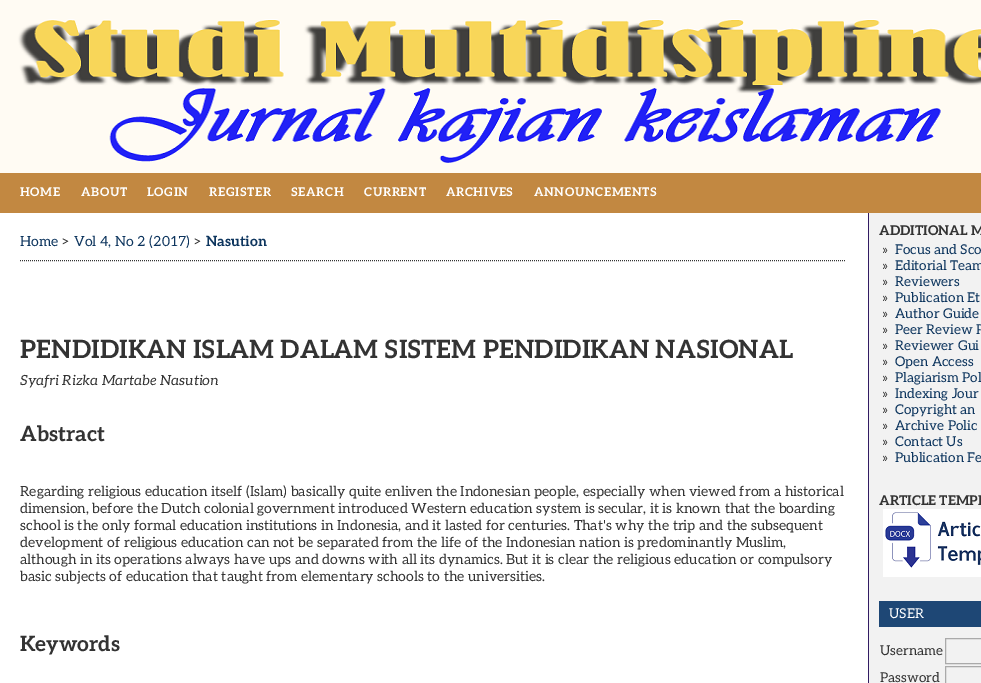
%!PS-Adobe-3.0
%%BoundingBox: 0 0 981 683
%%LanguageLevel: 3
%%Pages: 1
%%EndComments
%%BeginProlog
/setink { dup -16 bitshift 255 div exch dup -8 bitshift 255 and 255 div exch 255 and 255 div setrgbcolor } def
/usefont { [ exch dup neg 0 0 3 -1 roll 0 0 ] selectfont } def
/drawimage { 5 dict begin { /h /w /y /x /name } { exch def } forall
  gsave x y translate w h scale
  w h 8 [w 0 0 h 0 0] name (r) file false 3 colorimage grestore end } def
%%EndProlog
%%BeginSetup
<< /PageSize [981 683] >> setpagedevice
%%EndSetup
%%Page: 1 1
0 683 translate 1 -1 scale
4 setmiterlimit
16#FFFFFF setink
0 0 981 683 rectfill
(img1.raw) 0 0 981 173 drawimage
16#C28841 setink
0 173 981 40 rectfill
/Aleo-Bold 12 usefont
16#FFFFFF setink
20 196 moveto 0.6 0 (HOME) ashow
81 196 moveto 0.6 0 (ABOUT) ashow
147 196 moveto 0.6 0 (LOGIN) ashow
209 196 moveto 0.6 0 (REGISTER) ashow
291 196 moveto 0.6 0 (SEARCH) ashow
364 196 moveto 0.6 0 (CURRENT) ashow
446 196 moveto 0.6 0 (ARCHIVES) ashow
534 196 moveto 0.6 0 (ANNOUNCEMENTS) ashow
16#333333 setink
[1 1] 0 setdash
20 260.5 moveto 845 260.5 lineto stroke
/Aleo-Regular 14 usefont
16#0D355E setink
20 246 moveto (Home) show
16#333333 setink
62 246 moveto (>) show
16#0D355E setink
74 246 moveto (Vol 4, No 2 \(2017\)) show
16#333333 setink
194 246 moveto (>) show
/Aleo-Bold 14 usefont
16#0D355E setink
206 246 moveto (Nasution) show
/Aleo-Bold 25.2 usefont
16#333333 setink
20 358 moveto (PENDIDIKAN ISLAM DALAM SISTEM PENDIDIKAN NASIONAL) show
/Aleo-Italic 14 usefont
20 385 moveto (Syafri Rizka Martabe Nasution) show
/Aleo-Bold 21 usefont
20 441 moveto (Abstract) show
/Aleo-Regular 14 usefont
[
    [(Regarding religious education itself \(Islam\) basically quite enliven the Indonesian people, especially when viewed from a historical) 20 496]
    [(dimension, before the Dutch colonial government introduced Western education system is secular, it is known that the boarding) 20 513]
    [(school is the only formal education institutions in Indonesia, and it lasted for centuries. That's why the trip and the subsequent) 20 530]
    [(development of religious education can not be separated from the life of the Indonesian nation is predominantly Muslim,) 20 547]
    [(although in its operations always have ups and downs with all its dynamics. But it is clear the religious education or compulsory) 20 564]
    [(basic subjects of education that taught from elementary schools to the universities.) 20 581]
] { aload pop moveto show } forall
/Aleo-Bold 21 usefont
20 651 moveto (Keywords) show
16#F2F2F2 setink
869 213 112 470 rectfill
16#311B63 setink
868 213 1 470 rectfill
/Aleo-Bold 13.5 usefont
16#333333 setink
879 235 moveto (ADDITIONAL M) show
/Aleo-Regular 13.5 usefont
882 254 moveto (») show
16#0D355E setink
895 254 moveto (Focus and Sco) show
16#333333 setink
882 270 moveto (») show
16#0D355E setink
895 270 moveto (Editorial Team) show
16#333333 setink
882 286 moveto (») show
16#0D355E setink
895 286 moveto (Reviewers) show
16#333333 setink
882 302 moveto (») show
16#0D355E setink
895 302 moveto (Publication Et) show
16#333333 setink
882 318 moveto (») show
16#0D355E setink
895 318 moveto (Author Guide) show
16#333333 setink
882 334 moveto (») show
16#0D355E setink
895 334 moveto (Peer Review P) show
16#333333 setink
882 350 moveto (») show
16#0D355E setink
895 350 moveto (Reviewer Gui) show
16#333333 setink
882 366 moveto (») show
16#0D355E setink
895 366 moveto (Open Access) show
16#333333 setink
882 382 moveto (») show
16#0D355E setink
895 382 moveto (Plagiarism Pol) show
16#333333 setink
882 398 moveto (») show
16#0D355E setink
895 398 moveto (Indexing Jour) show
16#333333 setink
882 414 moveto (») show
16#0D355E setink
895 414 moveto (Copyright an) show
16#333333 setink
882 430 moveto (») show
16#0D355E setink
895 430 moveto (Archive Polic) show
16#333333 setink
882 446 moveto (») show
16#0D355E setink
895 446 moveto (Contact Us) show
16#333333 setink
882 462 moveto (») show
16#0D355E setink
895 462 moveto (Publication Fe) show
/Aleo-Bold 13.5 usefont
16#333333 setink
879 505 moveto (ARTICLE TEMPL) show
(img2.raw) 883 509 98 68 drawimage
16#1E4775 setink
879 601 102 26 rectfill
/Aleo-Regular 13.5 usefont
16#FFFFFF setink
889 618 moveto (USER) show
16#333333 setink
880 655 moveto (Username) show
16#AAAAAA setink
[] 0 setdash
945.5 638.5 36 25 rectstroke
16#333333 setink
880 682 moveto (Password) show
16#AAAAAA setink
945.5 666.5 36 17 rectstroke
showpage
%%EOF
